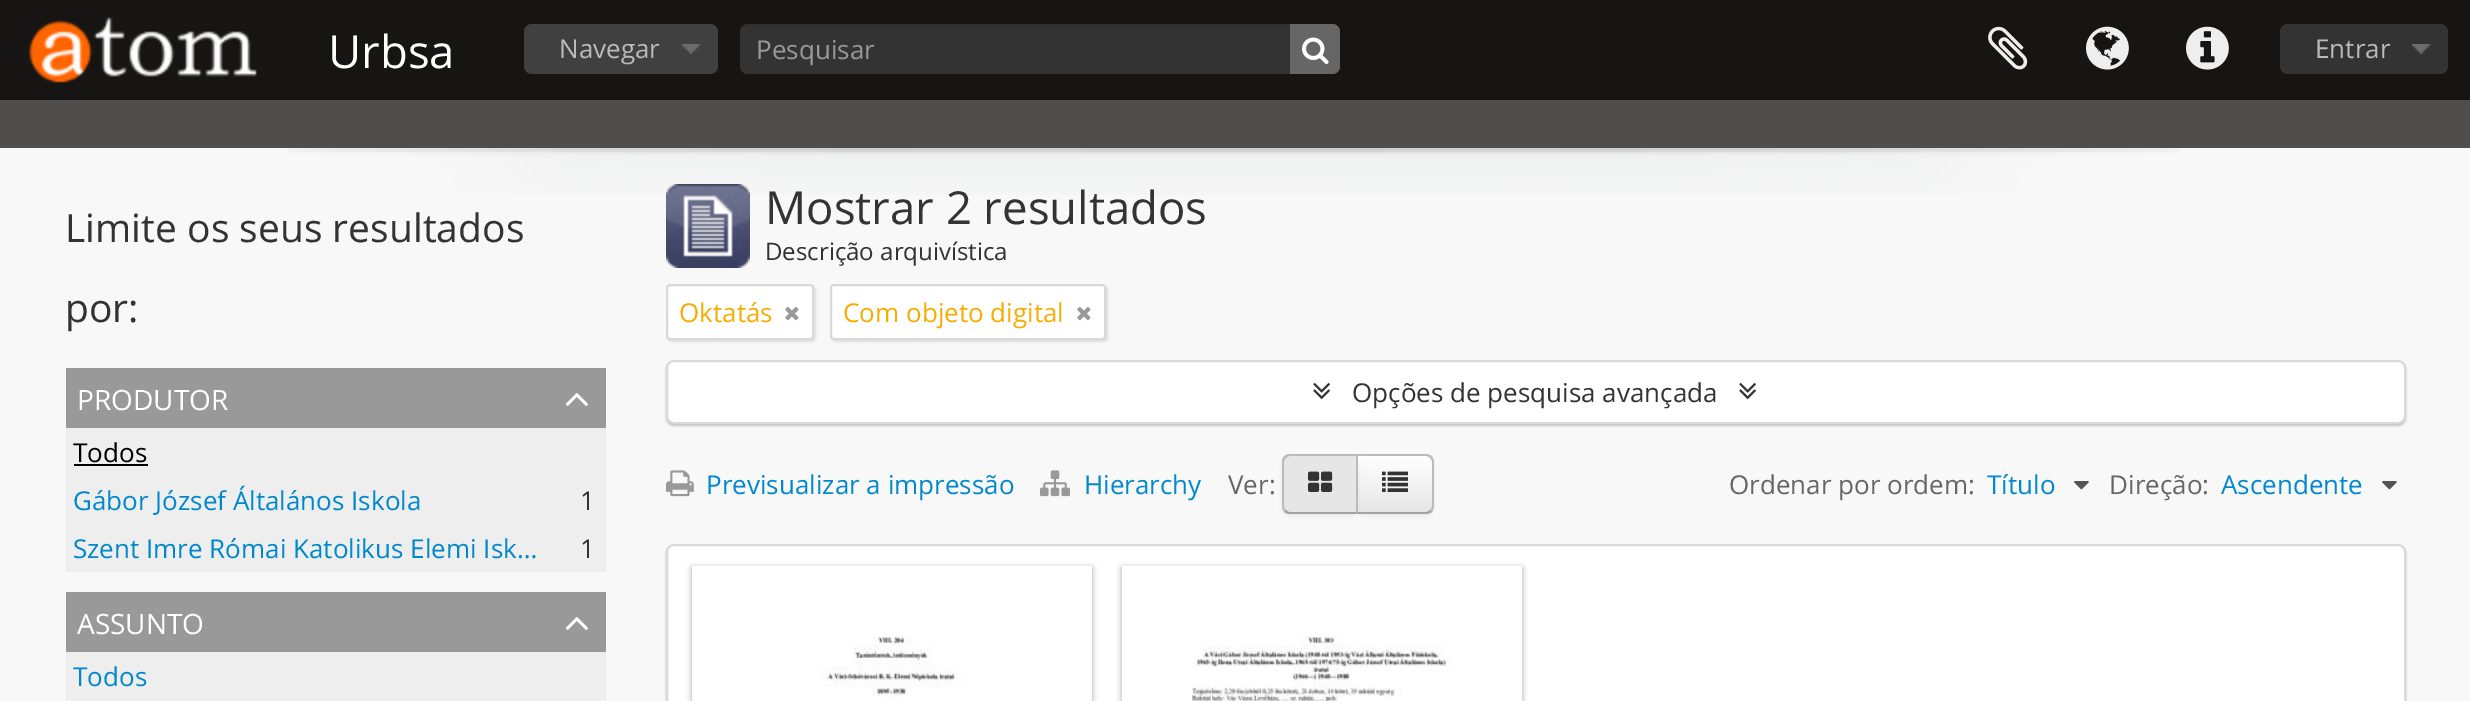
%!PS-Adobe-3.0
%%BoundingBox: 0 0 2470 701
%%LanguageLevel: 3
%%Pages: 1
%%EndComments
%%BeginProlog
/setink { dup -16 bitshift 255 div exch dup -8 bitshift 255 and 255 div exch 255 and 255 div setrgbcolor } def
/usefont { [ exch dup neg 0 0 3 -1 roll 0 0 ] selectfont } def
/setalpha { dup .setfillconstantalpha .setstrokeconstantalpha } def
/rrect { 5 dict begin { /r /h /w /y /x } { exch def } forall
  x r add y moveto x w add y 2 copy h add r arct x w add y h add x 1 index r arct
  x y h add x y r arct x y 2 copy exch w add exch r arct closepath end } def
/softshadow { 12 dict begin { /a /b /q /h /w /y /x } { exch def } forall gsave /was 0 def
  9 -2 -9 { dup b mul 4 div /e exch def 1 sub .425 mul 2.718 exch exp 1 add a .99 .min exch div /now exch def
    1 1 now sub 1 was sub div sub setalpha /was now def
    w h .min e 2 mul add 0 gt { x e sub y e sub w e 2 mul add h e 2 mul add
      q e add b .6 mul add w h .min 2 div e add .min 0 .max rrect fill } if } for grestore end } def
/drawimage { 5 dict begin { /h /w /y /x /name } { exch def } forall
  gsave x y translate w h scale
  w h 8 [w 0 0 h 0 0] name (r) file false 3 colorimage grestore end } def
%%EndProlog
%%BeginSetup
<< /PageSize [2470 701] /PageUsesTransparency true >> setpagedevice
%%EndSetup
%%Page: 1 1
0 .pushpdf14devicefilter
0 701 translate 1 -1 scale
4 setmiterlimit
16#F8F8F8 setink
0 0 2470 701 rectfill
16#161514 setink
0 0 2470 100 rectfill
(img1.raw) 28 17 229 66 drawimage
/OpenSans-Regular 45.5 usefont
16#FFFFFF setink
328 68 moveto (Urbsa) show
16#404040 setink
524 24 194 50 8 rrect fill
(img2.raw) 682 44 19 10 drawimage
/OpenSans-Regular 26 usefont
16#BBBBBB setink
559 58 moveto (Navegar) show
16#333333 setink
740 24 600 50 8 rrect fill
0.07 setalpha
16#000000 setink
748 26 moveto 1332 26 lineto 1336 26 1340 30 1340 34 curveto 1340 29 1338 24 1332 24 curveto 748 24 lineto 742 24 740 29 740 34 curveto 740 30 744 26 748 26 curveto closepath fill
1 setalpha
16#999999 setink
756 59 moveto (Pesquisar) show
16#666666 setink
1290 24 moveto 1332 24 lineto 1336.5 24 1340 27.5 1340 32 curveto 1340 66 lineto 1340 70.5 1336.5 74 1332 74 curveto 1290 74 lineto closepath fill
(img3.raw) 1302 37 27 28 drawimage
(img4.raw) 1988 26 40 44 drawimage
(img5.raw) 2086 26 43 44 drawimage
(img6.raw) 2186 26 43 44 drawimage
16#333333 setink
2280 24 168 50 8 rrect fill
(img7.raw) 2412 44 19 10 drawimage
16#BBBBBB setink
2315 58 moveto (Entrar) show
16#4F4E4D setink
0 100 2470 48 rectfill
(img8.raw) 288 148 1892 47 drawimage
/OpenSans-Regular 39 usefont
16#333333 setink
65 242 moveto (Limite os seus resultados) show
65 322 moveto (por:) show
16#999999 setink
66 368 540 60 rectfill
/OpenSans-Regular 28 usefont
16#FFFFFF setink
77 410 moveto (PRODUTOR) show
(img9.raw) 565 393 23 13 drawimage
16#EEEEEE setink
66 428 540 144 rectfill
/OpenSans-Regular 26 usefont
16#000000 setink
73 462 moveto (Todos) show
74 464 74 2 rectfill
16#0088CC setink
73 510 moveto (Gábor József Általános Iskola) show
16#333333 setink
580 510 moveto (1) show
16#0088CC setink
73 558 moveto (Szent Imre Római Katolikus Elemi Isk…) show
16#333333 setink
580 558 moveto (1) show
16#999999 setink
66 592 540 60 rectfill
/OpenSans-Regular 28 usefont
16#FFFFFF setink
77 634 moveto (ASSUNTO) show
(img9.raw) 565 617 23 13 drawimage
16#EEEEEE setink
66 652 540 49 rectfill
/OpenSans-Regular 26 usefont
16#0088CC setink
73 686 moveto (Todos) show
(img10.raw) 666 184 84 84 drawimage
/OpenSans-Regular 45.5 usefont
16#333333 setink
765 224 moveto (Mostrar 2 resultados) show
/OpenSans-Regular 24 usefont
765 260 moveto (Descrição arquivística) show
16#000000 setink
668 286 148 56 4 1 0.1 softshadow
16#FFFFFF setink
667 285 146 54 3 rrect gsave fill grestore
16#D9D9D9 setink
2 setlinewidth
stroke
/OpenSans-Regular 26 usefont
16#F6AC00 setink
679 322 moveto (Oktatás) show
(img11.raw) 785 307 14 14 drawimage
16#000000 setink
832 286 276 56 4 1 0.1 softshadow
16#FFFFFF setink
831 285 274 54 3 rrect gsave fill grestore
16#D9D9D9 setink
stroke
16#F6AC00 setink
843 322 moveto (Com objeto digital) show
(img11.raw) 1077 307 14 14 drawimage
16#000000 setink
666 362 1740 64 8 1 0.2 softshadow
16#FFFFFF setink
667 361 1738 62 7 rrect gsave fill grestore
16#D9D9D9 setink
stroke
(img12.raw) 1313 383 17 17 drawimage
16#333333 setink
1352 402 moveto (Opções de pesquisa avançada) show
(img12.raw) 1739 383 17 17 drawimage
(img13.raw) 666 470 28 27 drawimage
16#0088CC setink
706 494 moveto (Previsualizar a impressão) show
(img14.raw) 1040 470 30 27 drawimage
1084 494 moveto (Hierarchy) show
16#666666 setink
1228 494 moveto (Ver:) show
16#000000 setink
1356 456 78 60 8 2 0.05 softshadow
gsave
1356 454 moveto 1426 454 lineto 1430.5 454 1434 457.5 1434 462 curveto 1434 506 lineto 1434 510.5 1430.5 514 1426 514 curveto 1356 514 lineto closepath clip newpath
gsave 1358 456 moveto 1434 456 lineto 1434 512 lineto 1358 512 lineto closepath clip newpath
<< /ShadingType 2 /ColorSpace /DeviceRGB /Coords [1395 456 1395 512] /Extend [true true] /Function << /FunctionType 2 /Domain [0 1] /C0 [1 1 1] /C1 [0.902 0.902 0.902] /N 1 >> >> shfill grestore
grestore
16#BBBBBB setink
1356 454 moveto 1358 456 lineto 1426 456 lineto 1428 456 1429 457 1430 458 curveto 1432 456 lineto 1430 455 1428 454 1426 454 curveto closepath fill
1434 506 moveto 1434 462 lineto 1434 460 1433 458 1432 456 curveto 1430 458 lineto 1431 459 1432 460 1432 462 curveto 1432 506 lineto 1432 508 1431 509 1430 510 curveto 1432 512 lineto 1433 510 1434 508 1434 506 curveto closepath fill
16#A2A2A2 setink
1426 514 moveto 1428 514 1430 513 1432 512 curveto 1430 510 lineto 1429 511 1428 512 1426 512 curveto 1358 512 lineto 1356 514 lineto closepath fill
16#000000 setink
1282 456 76 60 8 2 0.05 softshadow
16#E6E6E6 setink
1290 454 moveto 1358 454 lineto 1358 514 lineto 1290 514 lineto 1285.5 514 1282 510.5 1282 506 curveto 1282 462 lineto 1282 457.5 1285.5 454 1290 454 curveto closepath fill
16#BBBBBB setink
1290 454 moveto 1288 454 1286 455 1284 456 curveto 1286 458 lineto 1287 457 1288 456 1290 456 curveto 1356 456 lineto 1358 454 lineto closepath fill
1358 454 moveto 1356 456 lineto 1356 512 lineto 1358 514 lineto closepath fill
16#A2A2A2 setink
1358 514 moveto 1356 512 lineto 1290 512 lineto 1288 512 1287 511 1286 510 curveto 1284 512 lineto 1286 513 1288 514 1290 514 curveto closepath fill
16#BBBBBB setink
1282 462 moveto 1282 506 lineto 1282 508 1283 510 1284 512 curveto 1286 510 lineto 1285 509 1284 508 1284 506 curveto 1284 462 lineto 1284 460 1285 459 1286 458 curveto 1284 456 lineto 1283 458 1282 460 1282 462 curveto closepath fill
(img15.raw) 1308 471 25 21 drawimage
(img16.raw) 1382 471 26 21 drawimage
16#666666 setink
1729 494 moveto (Ordenar por ordem:) show
16#0088CC setink
1987 494 moveto (Título) show
(img17.raw) 2074 481 15 9 drawimage
16#666666 setink
2109 494 moveto (Direção:) show
16#0088CC setink
2221 494 moveto (Ascendente) show
(img17.raw) 2382 481 15 9 drawimage
16#000000 setink
666 546 1740 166 8 1 0.2 softshadow
16#FFFFFF setink
667 545 1738 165 7 rrect gsave fill grestore
16#D9D9D9 setink
stroke
gsave
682 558 moveto 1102 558 lineto 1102 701 lineto 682 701 lineto closepath 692 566 moveto 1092 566 lineto 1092 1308 lineto 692 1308 lineto closepath eoclip newpath
16#191919 setink
692 568 400 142 0 3 0.4 softshadow
grestore
(img18.raw) 822 636 139 61 drawimage
gsave
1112 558 moveto 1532 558 lineto 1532 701 lineto 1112 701 lineto closepath 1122 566 moveto 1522 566 lineto 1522 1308 lineto 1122 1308 lineto closepath eoclip newpath
16#191919 setink
1122 568 400 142 0 3 0.4 softshadow
grestore
(img19.raw) 1192 636 259 65 drawimage
.poppdf14devicefilter showpage
%%EOF
